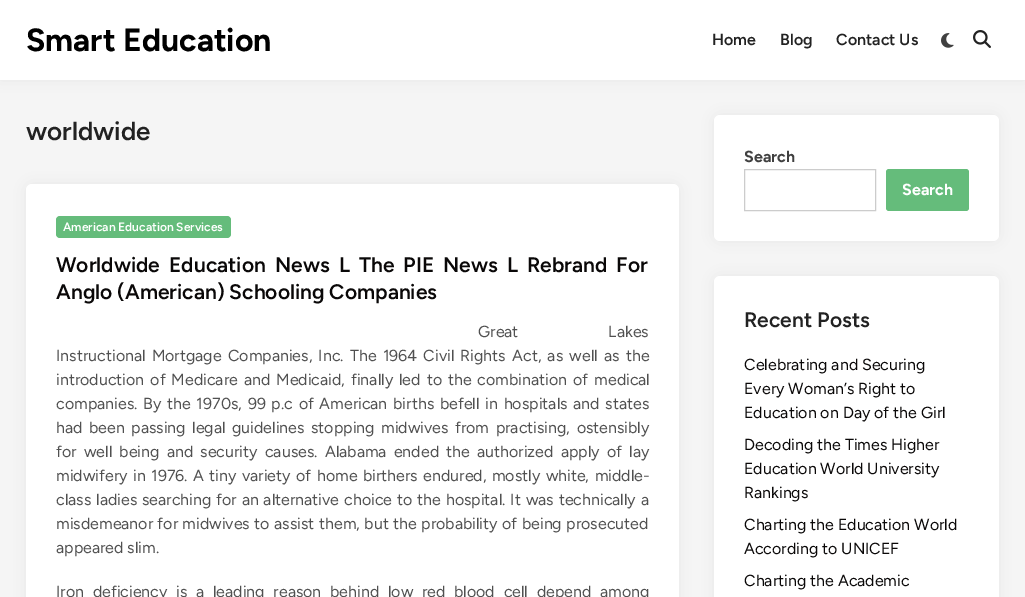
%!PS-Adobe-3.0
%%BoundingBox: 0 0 1025 597
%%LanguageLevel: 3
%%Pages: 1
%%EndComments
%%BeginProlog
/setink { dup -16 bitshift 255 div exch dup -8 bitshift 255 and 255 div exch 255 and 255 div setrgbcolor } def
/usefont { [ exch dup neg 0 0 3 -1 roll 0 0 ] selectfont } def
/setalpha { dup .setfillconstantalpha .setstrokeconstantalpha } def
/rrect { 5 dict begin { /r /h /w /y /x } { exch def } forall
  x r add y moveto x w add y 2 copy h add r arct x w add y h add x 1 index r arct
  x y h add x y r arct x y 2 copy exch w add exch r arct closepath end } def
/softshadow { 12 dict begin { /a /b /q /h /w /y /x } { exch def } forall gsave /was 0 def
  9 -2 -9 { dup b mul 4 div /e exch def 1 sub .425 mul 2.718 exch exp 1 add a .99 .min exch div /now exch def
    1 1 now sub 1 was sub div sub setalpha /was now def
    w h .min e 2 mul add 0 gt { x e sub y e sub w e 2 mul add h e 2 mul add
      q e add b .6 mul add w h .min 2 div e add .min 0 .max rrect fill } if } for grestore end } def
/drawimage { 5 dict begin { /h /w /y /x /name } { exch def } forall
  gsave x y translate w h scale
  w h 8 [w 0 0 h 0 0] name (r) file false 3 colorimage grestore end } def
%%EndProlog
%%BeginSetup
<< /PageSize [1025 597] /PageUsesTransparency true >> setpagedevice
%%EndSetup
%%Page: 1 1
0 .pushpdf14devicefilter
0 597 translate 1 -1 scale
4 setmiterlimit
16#F5F5F5 setink
0 0 1025 597 rectfill
16#000000 setink
0 0 1025 80 0 7.5 0.06 softshadow
16#FFFFFF setink
0 0 1025 80 rectfill
/Figtree-Bold 32 usefont
16#000000 setink
26 51 moveto (Smart Education) show
/Figtree-SemiBold 16 usefont
16#222222 setink
[
    [(Home) 712 45]
    [(Blog) 780 45]
    [(Contact Us) 836 45]
] { aload pop moveto show } forall
(img1.raw) 941 33 13 15 drawimage
(img2.raw) 973 30 18 18 drawimage
/Figtree-SemiBold 26 usefont
26 140 moveto (worldwide) show
16#000000 setink
26 184 653 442 6 7.5 0.06 softshadow
16#FFFFFF setink
26 184 653 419 6 rrect fill
16#65BC7B setink
56 216 175 22 4 rrect fill
/Figtree-SemiBold 12 usefont
16#FFFFFF setink
63 231 moveto (American Education Services) show
/Figtree-SemiBold 21 usefont
16#0A0808 setink
56 272 moveto 4 0 32 (Worldwide Education News L The PIE News L Rebrand For) widthshow
56 299 moveto (Anglo \(American\) Schooling Companies) show
/Figtree-Regular 16 usefont
16#505050 setink
478 337 moveto 86 0 32 (Great Lakes) widthshow
56 361 moveto 2.25 0 32 (Instructional Mortgage Companies, Inc. The 1964 Civil Rights Act, as well as the) widthshow
56 385 moveto 2 0 32 (introduction of Medicare and Medicaid, finally led to the combination of medical) widthshow
56 409 moveto 1.75 0 32 (companies. By the 1970s, 99 p.c of American births befell in hospitals and states) widthshow
56 433 moveto 2.5 0 32 (had been passing legal guidelines stopping midwives from practising, ostensibly) widthshow
56 457 moveto 3.25 0 32 (for well being and security causes. Alabama ended the authorized apply of lay) widthshow
56 481 moveto 1.5 0 32 (midwifery in 1976. A tiny variety of home birthers endured, mostly white, middle-) widthshow
56 505 moveto 0.9 0 32 (class ladies searching for an alternative choice to the hospital. It was technically a) widthshow
56 529 moveto 0.5 0 32 (misdemeanor for midwives to assist them, but the probability of being prosecuted) widthshow
56 553 moveto (appeared slim.) show
56 597 moveto 4.75 0 32 (Iron deficiency is a leading reason behind low red blood cell depend among) widthshow
16#000000 setink
714 115 285 126 6 7.5 0.06 softshadow
16#FFFFFF setink
714 115 285 126 6 rrect fill
/Figtree-Bold 16 usefont
16#404040 setink
744 162 moveto (Search) show
16#CCCCCC setink
744.5 169.5 131 41 rectstroke
16#65BC7B setink
886 169 83 42 3 rrect fill
16#FFFFFF setink
902 195 moveto (Search) show
16#000000 setink
714 276 285 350 6 7.5 0.06 softshadow
16#FFFFFF setink
714 276 285 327 6 rrect fill
/Figtree-SemiBold 21 usefont
16#222222 setink
744 327 moveto (Recent Posts) show
/Figtree-Regular 16 usefont
16#0A0808 setink
[
    [(Celebrating and Securing) 744 370]
    [(Every Woman’s Right to) 744 394]
    [(Education on Day of the Girl) 744 418]
    [(Decoding the Times Higher) 744 450]
    [(Education World University) 744 474]
    [(Rankings) 744 498]
    [(Charting the Education World) 744 530]
    [(According to UNICEF) 744 554]
    [(Charting the Academic) 744 586]
] { aload pop moveto show } forall
.poppdf14devicefilter showpage
%%EOF
